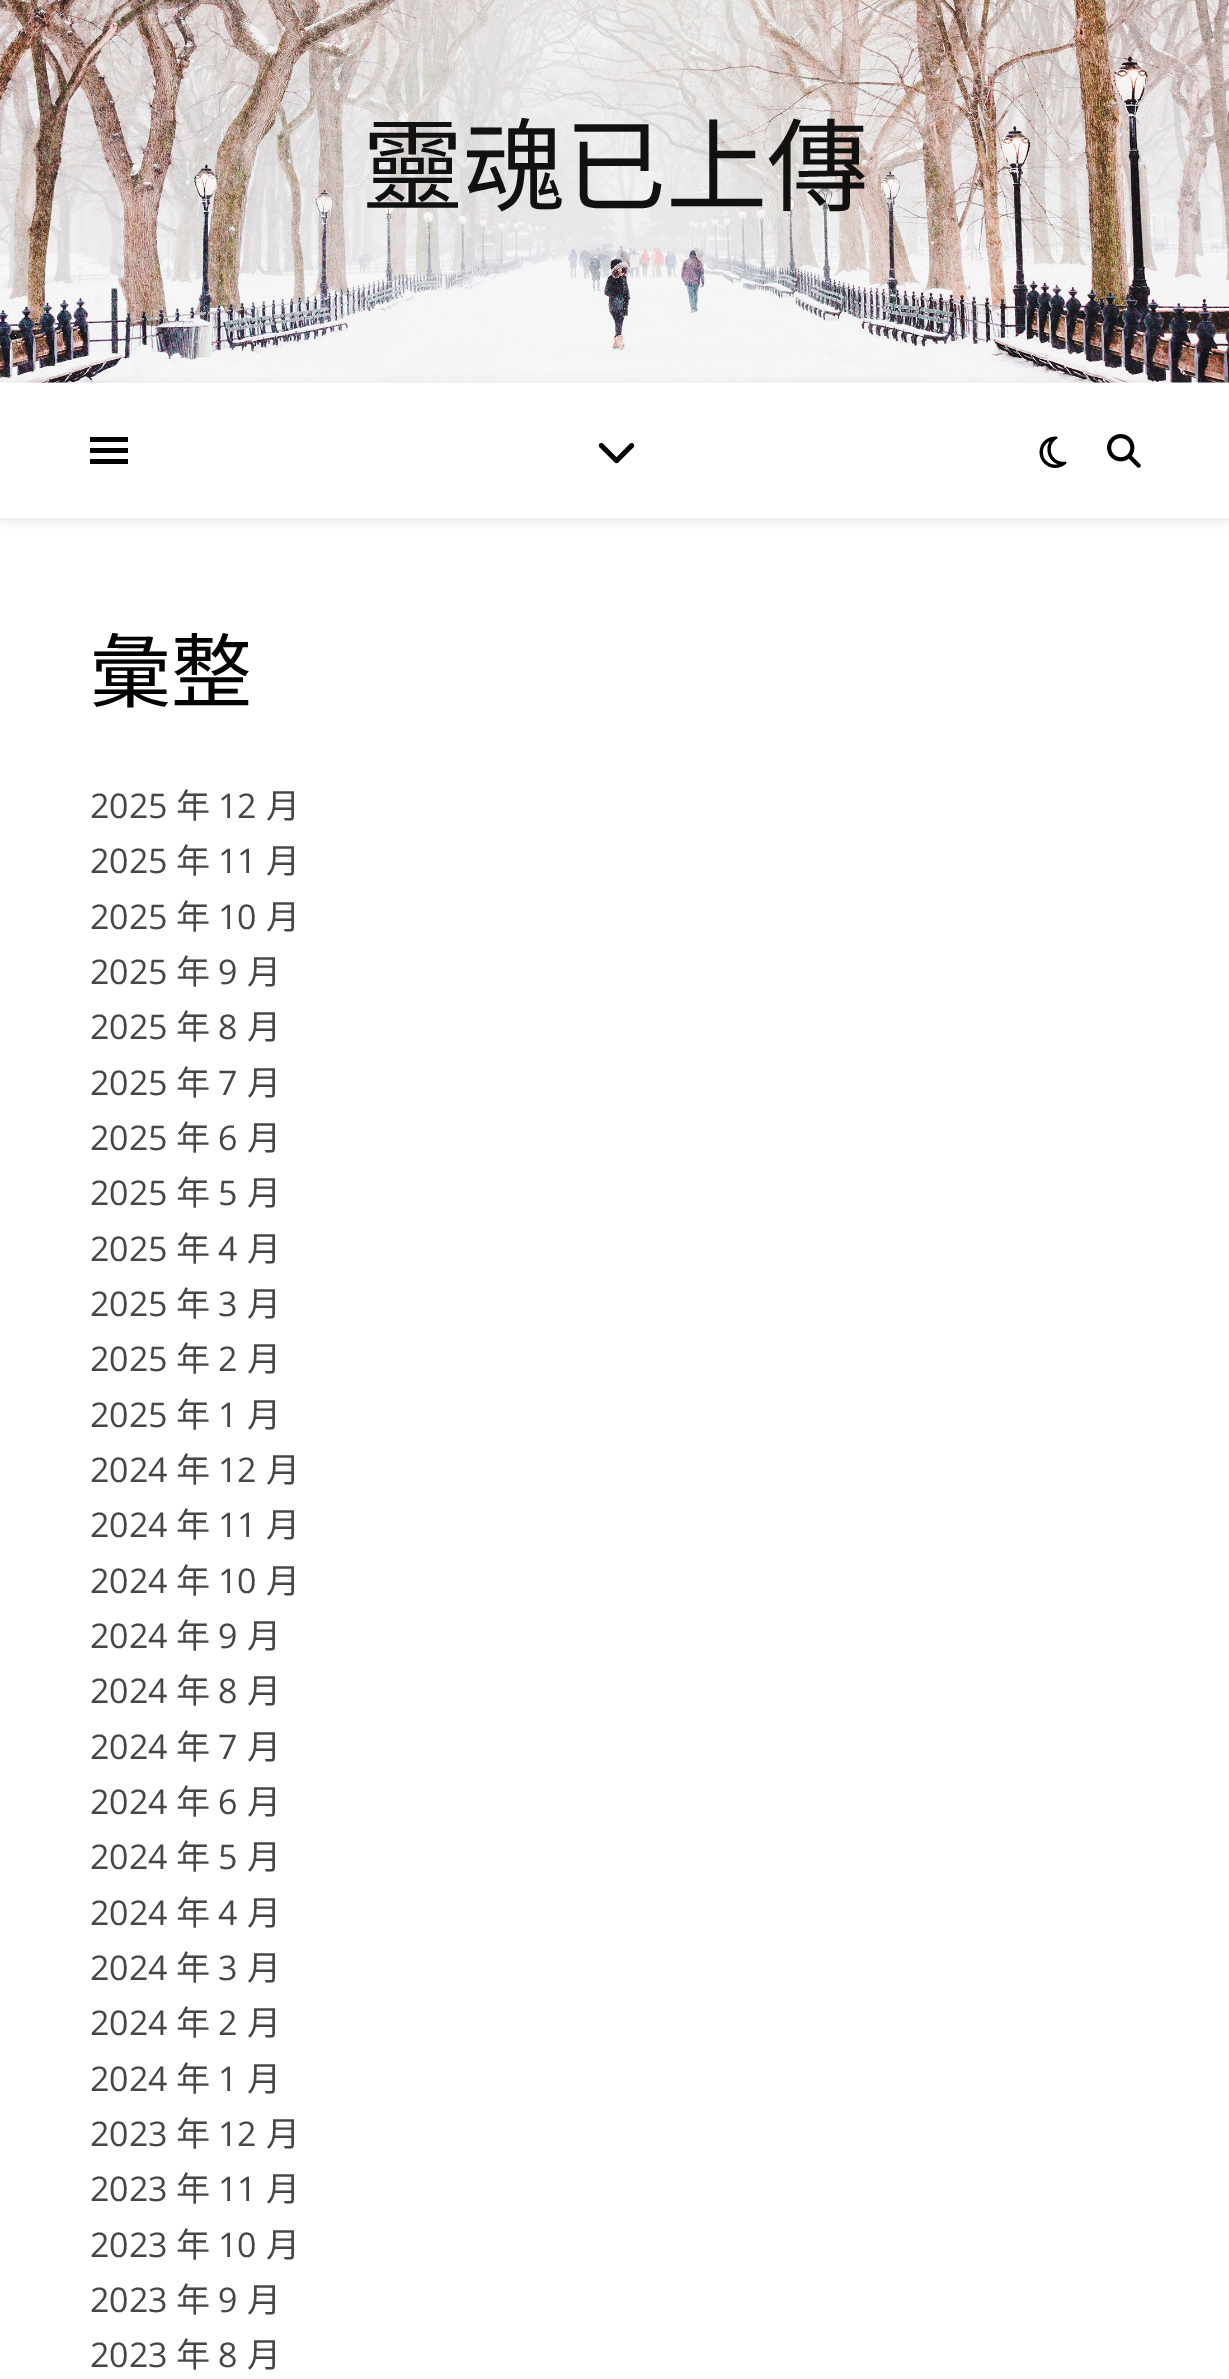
%!PS-Adobe-3.0
%%BoundingBox: 0 0 1229 2379
%%LanguageLevel: 3
%%Pages: 1
%%EndComments
%%BeginProlog
/setink { dup -16 bitshift 255 div exch dup -8 bitshift 255 and 255 div exch 255 and 255 div setrgbcolor } def
/usefont { [ exch dup neg 0 0 3 -1 roll 0 0 ] selectfont } def
/setalpha { dup .setfillconstantalpha .setstrokeconstantalpha } def
/rrect { 5 dict begin { /r /h /w /y /x } { exch def } forall
  x r add y moveto x w add y 2 copy h add r arct x w add y h add x 1 index r arct
  x y h add x y r arct x y 2 copy exch w add exch r arct closepath end } def
/softshadow { 12 dict begin { /a /b /q /h /w /y /x } { exch def } forall gsave /was 0 def
  9 -2 -9 { dup b mul 4 div /e exch def 1 sub .425 mul 2.718 exch exp 1 add a .99 .min exch div /now exch def
    1 1 now sub 1 was sub div sub setalpha /was now def
    w h .min e 2 mul add 0 gt { x e sub y e sub w e 2 mul add h e 2 mul add
      q e add b .6 mul add w h .min 2 div e add .min 0 .max rrect fill } if } for grestore end } def
/drawimage { 5 dict begin { /h /w /y /x /name } { exch def } forall
  gsave x y translate w h scale
  w h 8 [w 0 0 h 0 0] name (r) file false 3 colorimage grestore end } def
%%EndProlog
%%BeginSetup
<< /PageSize [1229 2379] /PageUsesTransparency true >> setpagedevice
%%EndSetup
%%Page: 1 1
0 .pushpdf14devicefilter
0 2379 translate 1 -1 scale
4 setmiterlimit
16#FFFFFF setink
0 0 1229 2379 rectfill
(img1.raw) 0 0 1229 383 drawimage
/NotoSansCJKTC-Regular 101.25 usefont
16#111111 setink
362 203 moveto (靈魂已上傳) show
16#000000 setink
0 385 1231 135 0 5.5 0.1 softshadow
[
    [0 383 1229 135 16#FFFFFF]
    [90 437 38 5 16#000000]
    [90 448 38 5 16#000000]
    [90 459 38 5 16#000000]
] { aload pop setink rectfill } forall
(img2.raw) 598 443 37 21 drawimage
(img3.raw) 1039 436 28 32 drawimage
(img4.raw) 1107 434 34 34 drawimage
/NotoSansCJKTC-Regular 81 usefont
16#030303 setink
90 701 moveto (彙整) show
/OpenSans-Regular 34 usefont
16#464646 setink
90 818 moveto (2025) show
/NotoSansCJKTC-Regular 34 usefont
176 818 moveto (年) show
/OpenSans-Regular 34 usefont
218 818 moveto (12) show
/NotoSansCJKTC-Regular 34 usefont
266 818 moveto (月) show
/OpenSans-Regular 34 usefont
90 873 moveto (2025) show
/NotoSansCJKTC-Regular 34 usefont
176 873 moveto (年) show
/OpenSans-Regular 34 usefont
218 873 moveto (11) show
/NotoSansCJKTC-Regular 34 usefont
266 873 moveto (月) show
/OpenSans-Regular 34 usefont
90 929 moveto (2025) show
/NotoSansCJKTC-Regular 34 usefont
176 929 moveto (年) show
/OpenSans-Regular 34 usefont
218 929 moveto (10) show
/NotoSansCJKTC-Regular 34 usefont
266 929 moveto (月) show
/OpenSans-Regular 34 usefont
90 984 moveto (2025) show
/NotoSansCJKTC-Regular 34 usefont
176 984 moveto (年) show
/OpenSans-Regular 34 usefont
218 984 moveto (9) show
/NotoSansCJKTC-Regular 34 usefont
247 984 moveto (月) show
/OpenSans-Regular 34 usefont
90 1039 moveto (2025) show
/NotoSansCJKTC-Regular 34 usefont
176 1039 moveto (年) show
/OpenSans-Regular 34 usefont
218 1039 moveto (8) show
/NotoSansCJKTC-Regular 34 usefont
247 1039 moveto (月) show
/OpenSans-Regular 34 usefont
90 1095 moveto (2025) show
/NotoSansCJKTC-Regular 34 usefont
176 1095 moveto (年) show
/OpenSans-Regular 34 usefont
218 1095 moveto (7) show
/NotoSansCJKTC-Regular 34 usefont
247 1095 moveto (月) show
/OpenSans-Regular 34 usefont
90 1150 moveto (2025) show
/NotoSansCJKTC-Regular 34 usefont
176 1150 moveto (年) show
/OpenSans-Regular 34 usefont
218 1150 moveto (6) show
/NotoSansCJKTC-Regular 34 usefont
247 1150 moveto (月) show
/OpenSans-Regular 34 usefont
90 1205 moveto (2025) show
/NotoSansCJKTC-Regular 34 usefont
176 1205 moveto (年) show
/OpenSans-Regular 34 usefont
218 1205 moveto (5) show
/NotoSansCJKTC-Regular 34 usefont
247 1205 moveto (月) show
/OpenSans-Regular 34 usefont
90 1261 moveto (2025) show
/NotoSansCJKTC-Regular 34 usefont
176 1261 moveto (年) show
/OpenSans-Regular 34 usefont
218 1261 moveto (4) show
/NotoSansCJKTC-Regular 34 usefont
247 1261 moveto (月) show
/OpenSans-Regular 34 usefont
90 1316 moveto (2025) show
/NotoSansCJKTC-Regular 34 usefont
176 1316 moveto (年) show
/OpenSans-Regular 34 usefont
218 1316 moveto (3) show
/NotoSansCJKTC-Regular 34 usefont
247 1316 moveto (月) show
/OpenSans-Regular 34 usefont
90 1371 moveto (2025) show
/NotoSansCJKTC-Regular 34 usefont
176 1371 moveto (年) show
/OpenSans-Regular 34 usefont
218 1371 moveto (2) show
/NotoSansCJKTC-Regular 34 usefont
247 1371 moveto (月) show
/OpenSans-Regular 34 usefont
90 1427 moveto (2025) show
/NotoSansCJKTC-Regular 34 usefont
176 1427 moveto (年) show
/OpenSans-Regular 34 usefont
218 1427 moveto (1) show
/NotoSansCJKTC-Regular 34 usefont
247 1427 moveto (月) show
/OpenSans-Regular 34 usefont
90 1482 moveto (2024) show
/NotoSansCJKTC-Regular 34 usefont
176 1482 moveto (年) show
/OpenSans-Regular 34 usefont
218 1482 moveto (12) show
/NotoSansCJKTC-Regular 34 usefont
266 1482 moveto (月) show
/OpenSans-Regular 34 usefont
90 1537 moveto (2024) show
/NotoSansCJKTC-Regular 34 usefont
176 1537 moveto (年) show
/OpenSans-Regular 34 usefont
218 1537 moveto (11) show
/NotoSansCJKTC-Regular 34 usefont
266 1537 moveto (月) show
/OpenSans-Regular 34 usefont
90 1593 moveto (2024) show
/NotoSansCJKTC-Regular 34 usefont
176 1593 moveto (年) show
/OpenSans-Regular 34 usefont
218 1593 moveto (10) show
/NotoSansCJKTC-Regular 34 usefont
266 1593 moveto (月) show
/OpenSans-Regular 34 usefont
90 1648 moveto (2024) show
/NotoSansCJKTC-Regular 34 usefont
176 1648 moveto (年) show
/OpenSans-Regular 34 usefont
218 1648 moveto (9) show
/NotoSansCJKTC-Regular 34 usefont
247 1648 moveto (月) show
/OpenSans-Regular 34 usefont
90 1703 moveto (2024) show
/NotoSansCJKTC-Regular 34 usefont
176 1703 moveto (年) show
/OpenSans-Regular 34 usefont
218 1703 moveto (8) show
/NotoSansCJKTC-Regular 34 usefont
247 1703 moveto (月) show
/OpenSans-Regular 34 usefont
90 1759 moveto (2024) show
/NotoSansCJKTC-Regular 34 usefont
176 1759 moveto (年) show
/OpenSans-Regular 34 usefont
218 1759 moveto (7) show
/NotoSansCJKTC-Regular 34 usefont
247 1759 moveto (月) show
/OpenSans-Regular 34 usefont
90 1814 moveto (2024) show
/NotoSansCJKTC-Regular 34 usefont
176 1814 moveto (年) show
/OpenSans-Regular 34 usefont
218 1814 moveto (6) show
/NotoSansCJKTC-Regular 34 usefont
247 1814 moveto (月) show
/OpenSans-Regular 34 usefont
90 1869 moveto (2024) show
/NotoSansCJKTC-Regular 34 usefont
176 1869 moveto (年) show
/OpenSans-Regular 34 usefont
218 1869 moveto (5) show
/NotoSansCJKTC-Regular 34 usefont
247 1869 moveto (月) show
/OpenSans-Regular 34 usefont
90 1925 moveto (2024) show
/NotoSansCJKTC-Regular 34 usefont
176 1925 moveto (年) show
/OpenSans-Regular 34 usefont
218 1925 moveto (4) show
/NotoSansCJKTC-Regular 34 usefont
247 1925 moveto (月) show
/OpenSans-Regular 34 usefont
90 1980 moveto (2024) show
/NotoSansCJKTC-Regular 34 usefont
176 1980 moveto (年) show
/OpenSans-Regular 34 usefont
218 1980 moveto (3) show
/NotoSansCJKTC-Regular 34 usefont
247 1980 moveto (月) show
/OpenSans-Regular 34 usefont
90 2035 moveto (2024) show
/NotoSansCJKTC-Regular 34 usefont
176 2035 moveto (年) show
/OpenSans-Regular 34 usefont
218 2035 moveto (2) show
/NotoSansCJKTC-Regular 34 usefont
247 2035 moveto (月) show
/OpenSans-Regular 34 usefont
90 2091 moveto (2024) show
/NotoSansCJKTC-Regular 34 usefont
176 2091 moveto (年) show
/OpenSans-Regular 34 usefont
218 2091 moveto (1) show
/NotoSansCJKTC-Regular 34 usefont
247 2091 moveto (月) show
/OpenSans-Regular 34 usefont
90 2146 moveto (2023) show
/NotoSansCJKTC-Regular 34 usefont
176 2146 moveto (年) show
/OpenSans-Regular 34 usefont
218 2146 moveto (12) show
/NotoSansCJKTC-Regular 34 usefont
266 2146 moveto (月) show
/OpenSans-Regular 34 usefont
90 2201 moveto (2023) show
/NotoSansCJKTC-Regular 34 usefont
176 2201 moveto (年) show
/OpenSans-Regular 34 usefont
218 2201 moveto (11) show
/NotoSansCJKTC-Regular 34 usefont
266 2201 moveto (月) show
/OpenSans-Regular 34 usefont
90 2257 moveto (2023) show
/NotoSansCJKTC-Regular 34 usefont
176 2257 moveto (年) show
/OpenSans-Regular 34 usefont
218 2257 moveto (10) show
/NotoSansCJKTC-Regular 34 usefont
266 2257 moveto (月) show
/OpenSans-Regular 34 usefont
90 2312 moveto (2023) show
/NotoSansCJKTC-Regular 34 usefont
176 2312 moveto (年) show
/OpenSans-Regular 34 usefont
218 2312 moveto (9) show
/NotoSansCJKTC-Regular 34 usefont
247 2312 moveto (月) show
/OpenSans-Regular 34 usefont
90 2367 moveto (2023) show
/NotoSansCJKTC-Regular 34 usefont
176 2367 moveto (年) show
/OpenSans-Regular 34 usefont
218 2367 moveto (8) show
/NotoSansCJKTC-Regular 34 usefont
247 2367 moveto (月) show
.poppdf14devicefilter showpage
%%EOF
